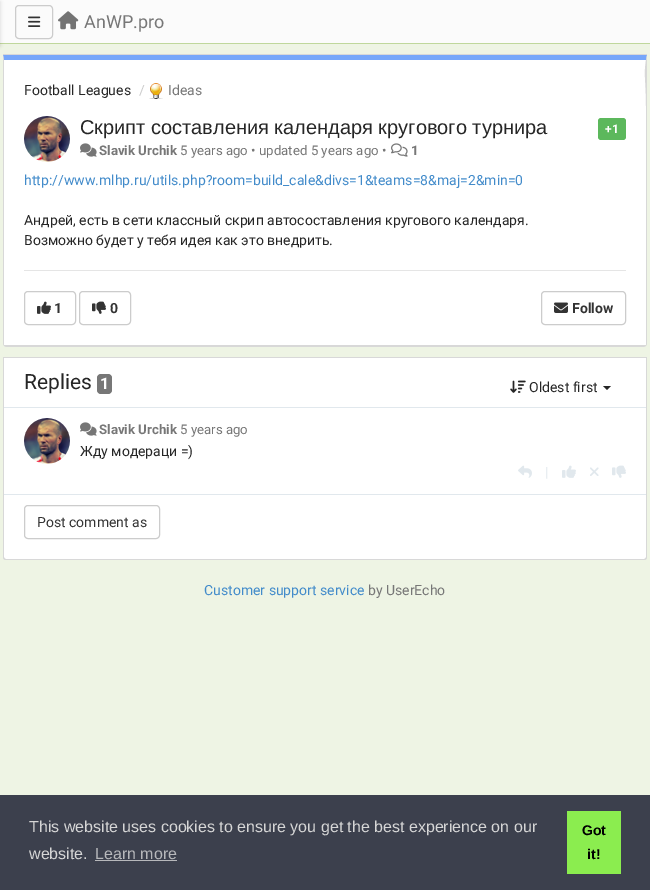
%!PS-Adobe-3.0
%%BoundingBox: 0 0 650 890
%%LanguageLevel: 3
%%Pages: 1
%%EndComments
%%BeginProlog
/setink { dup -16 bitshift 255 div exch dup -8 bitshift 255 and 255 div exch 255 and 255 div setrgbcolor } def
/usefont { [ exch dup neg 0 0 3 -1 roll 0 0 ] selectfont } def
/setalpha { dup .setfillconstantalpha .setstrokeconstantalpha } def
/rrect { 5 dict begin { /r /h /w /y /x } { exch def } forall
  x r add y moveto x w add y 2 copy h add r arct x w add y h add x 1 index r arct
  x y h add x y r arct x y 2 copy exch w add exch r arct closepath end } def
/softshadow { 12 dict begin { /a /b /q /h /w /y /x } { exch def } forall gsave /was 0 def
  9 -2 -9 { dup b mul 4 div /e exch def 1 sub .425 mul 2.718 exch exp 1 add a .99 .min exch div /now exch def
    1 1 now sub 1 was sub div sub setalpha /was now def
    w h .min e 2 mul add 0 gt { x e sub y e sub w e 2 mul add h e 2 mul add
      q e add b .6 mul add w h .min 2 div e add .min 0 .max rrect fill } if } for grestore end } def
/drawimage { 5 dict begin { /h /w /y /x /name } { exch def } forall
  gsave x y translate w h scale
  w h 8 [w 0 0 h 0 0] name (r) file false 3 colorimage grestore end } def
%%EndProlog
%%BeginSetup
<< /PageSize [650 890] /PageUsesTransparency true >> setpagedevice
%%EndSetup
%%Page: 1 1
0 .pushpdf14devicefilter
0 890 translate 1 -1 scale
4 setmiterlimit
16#EEF4E4 setink
0 0 650 890 rectfill
16#FBFBFB setink
0 0 650 43 rectfill
16#BFD79C setink
0 43 650 1 rectfill
16#000000 setink
-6 2 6 44 0 2 0.15 softshadow
16#CCCCCC setink
15.5 5.5 37 33 3.5 rrect stroke
(img1.raw) 28 16 13 11 drawimage
(img2.raw) 58 11 21 19 drawimage
/Roboto-Regular 18 usefont
16#777777 setink
84 28 moveto (AnWP.pro) show
16#D8D8D8 setink
3 54 644 1 rectfill
16#FFFFFF setink
4 60 moveto 646 60 lineto 646 344 lineto 646 345 645 345 644 345 curveto 6 345 lineto 5 345 4 345 4 344 curveto closepath fill
16#76A7FA setink
3 55 moveto 4 60 lineto 646 60 lineto 647 55 lineto closepath fill
16#D8D8D8 setink
647 55 moveto 643 73 646 79 646 107 curveto 646 345 lineto 646 346 lineto 647 344 lineto closepath fill
6 347 moveto 644 347 lineto 646 346 lineto 646 345 lineto 644 345 lineto 6 345 lineto 4 345 lineto 4 346 lineto closepath fill
4 60 moveto 3 55 lineto 3 344 lineto 4 346 lineto 4 344 lineto closepath fill
/Roboto-Regular 14 usefont
16#262626 setink
24 95 moveto (Football Leagues) show
16#CCCCCC setink
139 95 moveto (/) show
(img3.raw) 149 83 14 16 drawimage
16#777777 setink
168 95 moveto (Ideas) show
(img4.raw) 24 116 46 46 drawimage
/LiberationSans-Regular 20 usefont
16#262626 setink
80 134 moveto (Скрипт составления календаря кругового турнира) show
16#5CB85C setink
598 118 28 22 3 rrect fill
/Roboto-Bold 12 usefont
16#FFFFFF setink
605 133 moveto (+1) show
(img5.raw) 80 143 17 14 drawimage
/Roboto-Bold 13.25 usefont
16#777777 setink
99 155 moveto (Slavik Urchik) show
/Roboto-Regular 13.25 usefont
180 155 moveto (5 years ago • updated 5 years ago •) show
(img6.raw) 391 143 17 14 drawimage
/Roboto-Bold 13.25 usefont
411 155 moveto (1) show
/Roboto-Regular 14 usefont
16#428BCA setink
24 185 moveto (http://www.mlhp.ru/utils.php?room=build_cale&divs=1&teams=8&maj=2&min=0) show
16#262626 setink
24 225 moveto (Андрей, есть в сети классный скрип автосоставления кругового календаря.) show
24 245 moveto (Возможно будет у тебя идея как это внедрить.) show
16#E5E5E5 setink
24 270 602 1 rectfill
16#CCCCCC setink
24.5 291.5 51 33 3.5 rrect stroke
(img7.raw) 37 301 14 13 drawimage
/Roboto-Bold 14 usefont
16#333333 setink
54 313 moveto (1) show
16#CCCCCC setink
79.5 291.5 51 33 3.5 rrect stroke
(img8.raw) 92 301 14 13 drawimage
16#333333 setink
110 313 moveto (0) show
16#CCCCCC setink
541.5 291.5 84 33 3.5 rrect stroke
(img9.raw) 554 302 14 11 drawimage
16#333333 setink
572 313 moveto (Follow) show
16#D8D8D8 setink
3 357 644 1 rectfill
16#FFFFFF setink
4 358 moveto 646 358 lineto 646 557 lineto 646 558 645 559 644 559 curveto 6 559 lineto 5 559 4 558 4 557 curveto closepath fill
16#D8D8D8 setink
3 358 moveto 647 358 lineto 647 557 lineto 647 559 646 560 644 560 curveto 6 560 lineto 4 560 3 559 3 557 curveto closepath 4 358 moveto 646 358 lineto 646 557 lineto 646 558 645 559 644 559 curveto 6 559 lineto 5 559 4 558 4 557 curveto closepath eofill
/Roboto-Regular 21 usefont
16#262626 setink
24 389 moveto (Replies) show
16#777777 setink
97 374 15 20 4 rrect fill
/Roboto-Bold 16 usefont
16#FFFFFF setink
100 389 moveto (1) show
(img10.raw) 510 380 16 13 drawimage
/Roboto-Regular 14 usefont
16#262626 setink
529 392 moveto (Oldest first) show
603 386 moveto 611 386 lineto 607 390 lineto closepath fill
16#E1E8ED setink
4 407 642 1 rectfill
4 494 642 1 rectfill
(img4.raw) 24 418 46 46 drawimage
(img5.raw) 80 422 17 14 drawimage
/Roboto-Bold 13.25 usefont
16#777777 setink
99 434 moveto (Slavik Urchik) show
/Roboto-Regular 13.25 usefont
180 434 moveto (5 years ago) show
/Roboto-Regular 14 usefont
16#262626 setink
80 456 moveto (Жду модераци =\)) show
(img11.raw) 518 465 14 13 drawimage
16#E1E8ED setink
545 477 moveto (|) show
(img12.raw) 562 465 14 13 drawimage
(img13.raw) 590 467 9 9 drawimage
(img14.raw) 612 465 14 13 drawimage
16#CCCCCC setink
24.5 505.5 135 33 3.5 rrect stroke
16#333333 setink
37 527 moveto (Post comment as) show
16#428BCA setink
204 595 moveto (Customer support service) show
16#777777 setink
368 595 moveto (by UserEcho) show
16#3C404D setink
0 795 650 95 rectfill
/LiberationSans-Regular 16 usefont
16#D6D6D6 setink
29 832 moveto (This website uses cookies to ensure you get the best experience on our) show
29 859 moveto (website.) show
16#B7B8BB setink
95 859 moveto (Learn more) show
95 860 82 1 rectfill
16#8BED4F setink
567 811 54 63 rectfill
/LiberationSans-Bold 14 usefont
16#000000 setink
582 835 moveto (Got) show
587 859 moveto (it!) show
.poppdf14devicefilter showpage
%%EOF
